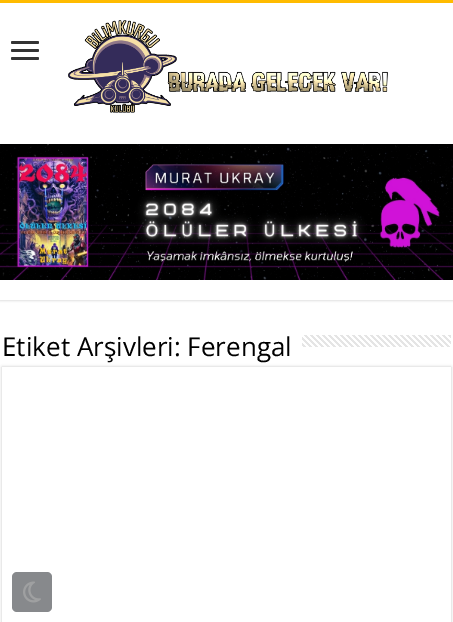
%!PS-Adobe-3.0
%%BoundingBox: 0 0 453 622
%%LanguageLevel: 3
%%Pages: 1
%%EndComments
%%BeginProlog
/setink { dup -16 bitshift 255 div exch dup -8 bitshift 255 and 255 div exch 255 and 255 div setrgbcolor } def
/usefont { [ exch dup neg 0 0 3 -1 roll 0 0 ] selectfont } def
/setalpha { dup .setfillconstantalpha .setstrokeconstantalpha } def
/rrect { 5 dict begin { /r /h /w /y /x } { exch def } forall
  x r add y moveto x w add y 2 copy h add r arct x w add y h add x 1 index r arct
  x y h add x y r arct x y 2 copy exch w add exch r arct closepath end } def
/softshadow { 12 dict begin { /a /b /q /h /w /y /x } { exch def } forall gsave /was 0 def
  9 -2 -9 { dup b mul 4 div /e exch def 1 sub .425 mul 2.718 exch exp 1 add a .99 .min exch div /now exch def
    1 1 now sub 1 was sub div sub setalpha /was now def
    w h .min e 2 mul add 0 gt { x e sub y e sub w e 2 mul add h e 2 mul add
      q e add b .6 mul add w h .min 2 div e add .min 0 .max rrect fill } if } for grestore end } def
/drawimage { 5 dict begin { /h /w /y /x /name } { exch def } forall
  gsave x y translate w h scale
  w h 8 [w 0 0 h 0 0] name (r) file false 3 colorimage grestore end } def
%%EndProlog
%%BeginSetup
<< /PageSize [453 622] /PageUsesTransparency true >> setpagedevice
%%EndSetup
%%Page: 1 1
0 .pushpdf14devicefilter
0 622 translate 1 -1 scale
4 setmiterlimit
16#FFFFFF setink
0 0 453 622 rectfill
gsave
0 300 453 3 rectclip
16#CACACA setink
0 0 453 300 0 1.5 1 softshadow
grestore
16#FFBB00 setink
0 0 453 3 rectfill
16#333333 setink
11 41 28 3 1.5 rrect fill
11 49 28 3 1.5 rrect fill
11 57 28 3 1.5 rrect fill
(img1.raw) 68 20 320 93 drawimage
(img2.raw) 0 144 453 136 drawimage
gsave
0 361 moveto 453 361 lineto 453 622 lineto 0 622 lineto closepath 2 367 moveto 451 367 lineto 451 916 lineto 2 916 lineto closepath eoclip newpath
16#CACACA setink
2 367 449 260 0 1.5 1 softshadow
grestore
/OpenSans-Regular 26 usefont
16#000000 setink
2 356 moveto (Etiket Arşivleri: Ferengal) show
(img3.raw) 302 335 149 12 drawimage
16#87898C setink
12 572 40 40 5 rrect fill
(img4.raw) 23 581 18 22 drawimage
.poppdf14devicefilter showpage
%%EOF
